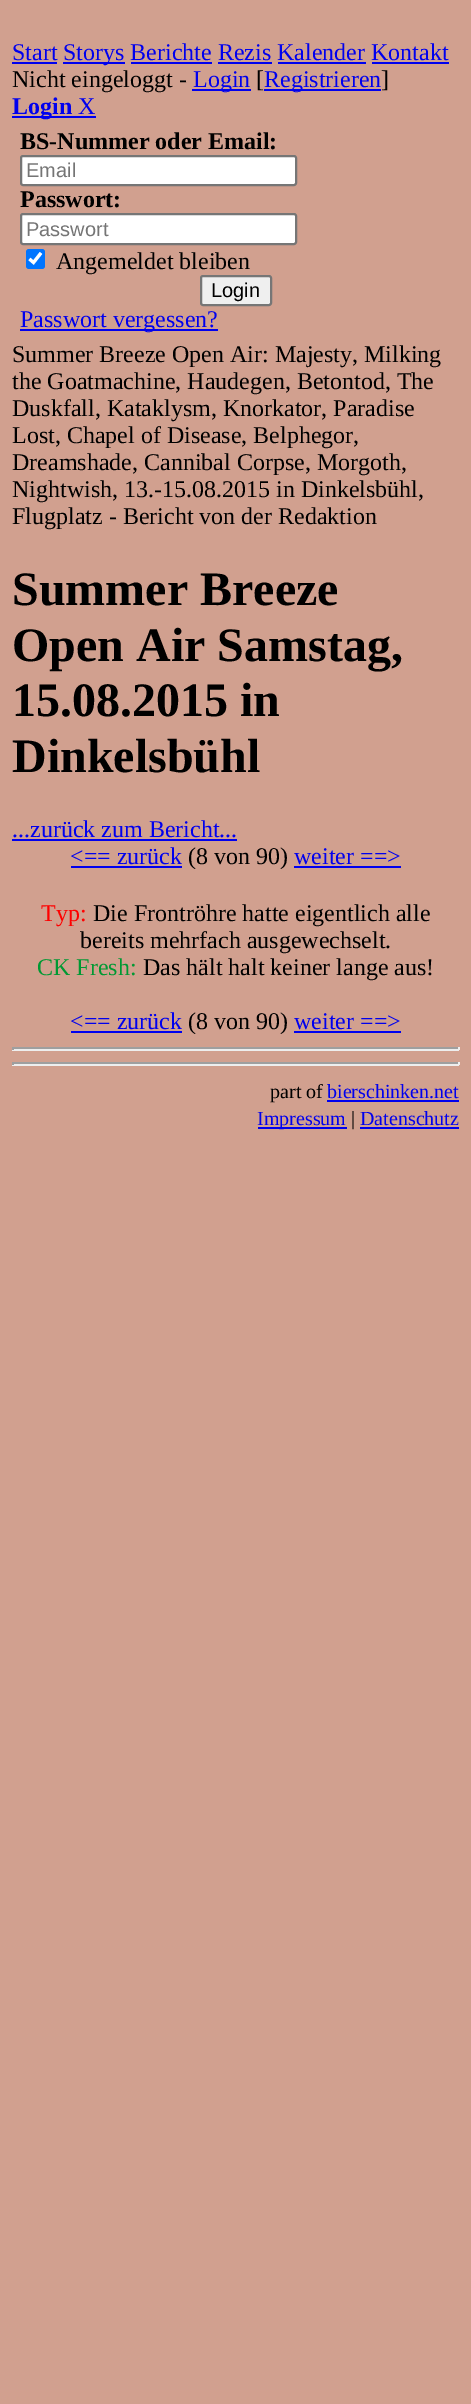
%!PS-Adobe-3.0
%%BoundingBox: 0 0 471 2404
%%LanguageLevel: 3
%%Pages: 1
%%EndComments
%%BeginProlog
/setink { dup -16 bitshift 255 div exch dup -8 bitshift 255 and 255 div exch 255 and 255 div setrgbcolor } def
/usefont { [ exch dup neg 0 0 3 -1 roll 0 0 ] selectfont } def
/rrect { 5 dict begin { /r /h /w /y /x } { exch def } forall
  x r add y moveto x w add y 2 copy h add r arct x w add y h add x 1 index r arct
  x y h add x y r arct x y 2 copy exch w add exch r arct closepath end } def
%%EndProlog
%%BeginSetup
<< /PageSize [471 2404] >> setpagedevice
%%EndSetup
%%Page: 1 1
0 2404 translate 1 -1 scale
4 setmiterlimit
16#D1A08F setink
0 0 471 2404 rectfill
/LiberationSerif-Regular 24 usefont
16#0000EE setink
12 60 moveto (Start) show
12 62 45 2 rectfill
63 62 62 2 rectfill
63 60 moveto (Storys Berichte Rezis Kalender Kontakt) show
[
    [131 62 81 2 16#0000EE]
    [218 62 54 2 16#0000EE]
    [278 62 88 2 16#0000EE]
    [372 62 77 2 16#0000EE]
] { aload pop setink rectfill } forall
16#000000 setink
12 87 moveto (Nicht eingeloggt -) show
16#0000EE setink
192 89 59 2 rectfill
193 87 moveto (Login) show
16#000000 setink
256 87 moveto ([) show
16#0000EE setink
264 89 117 2 rectfill
264 87 moveto (Registrieren) show
16#000000 setink
381 87 moveto (]) show
16#0000EE setink
12 116 84 2 rectfill
/LiberationSerif-Bold 24 usefont
12 114 moveto (Login) show
/LiberationSerif-Regular 24 usefont
78 114 moveto (X) show
/LiberationSerif-Bold 24 usefont
16#000000 setink
20 149 moveto (BS-Nummer oder Email:) show
16#FFFFFF setink
21 156 275 29 2 rrect gsave fill grestore
16#767676 setink
2 setlinewidth
stroke
/LiberationSans-Regular 20 usefont
16#757575 setink
26 177 moveto (Email) show
/LiberationSerif-Bold 24 usefont
16#000000 setink
20 207 moveto (Passwort:) show
16#FFFFFF setink
21 214 275 30 2 rrect gsave fill grestore
16#767676 setink
stroke
/LiberationSans-Regular 20 usefont
16#757575 setink
26 236 moveto (Passwort) show
16#0075FF setink
26 249 19 20 3 rrect fill
16#FFFFFF setink
3.1 setlinewidth
29.5 259 moveto 33.5 262.5 lineto 41 253 lineto stroke
/LiberationSerif-Regular 24 usefont
16#000000 setink
56 269 moveto (Angemeldet bleiben) show
16#EFEFEF setink
201 276 70 29 2 rrect gsave fill grestore
16#767676 setink
2 setlinewidth
stroke
/LiberationSans-Regular 20 usefont
16#000000 setink
211 297 moveto (Login) show
16#0000EE setink
20 329 198 2 rectfill
/LiberationSerif-Regular 24 usefont
20 327 moveto (Passwort vergessen?) show
16#000000 setink
[
    [(Summer Breeze Open Air: Majesty, Milking) 12 362]
    [(the Goatmachine, Haudegen, Betontod, The) 12 389]
    [(Duskfall, Kataklysm, Knorkator, Paradise) 12 416]
    [(Lost, Chapel of Disease, Belphegor,) 12 443]
    [(Dreamshade, Cannibal Corpse, Morgoth,) 12 470]
    [(Nightwish, 13.-15.08.2015 in Dinkelsbühl,) 12 497]
    [(Flugplatz - Bericht von der Redaktion) 12 524]
] { aload pop moveto show } forall
/LiberationSerif-Bold 48 usefont
[
    [(Summer Breeze) 12 605]
    [(Open Air Samstag,) 12 661]
    [(15.08.2015 in) 12 716]
    [(Dinkelsbühl) 12 772]
] { aload pop moveto show } forall
/LiberationSerif-Regular 24 usefont
16#0000EE setink
12 837 moveto (...zurück zum Bericht...) show
12 839 225 2 rectfill
70 864 moveto (<== zurück) show
71 866 111 2 rectfill
16#000000 setink
188 864 moveto (\(8 von 90\)) show
16#0000EE setink
294 864 moveto (weiter ==>) show
294 866 107 2 rectfill
16#FF0000 setink
41 921 moveto (Typ:) show
16#000000 setink
93 921 moveto (Die Frontröhre hatte eigentlich alle) show
80 948 moveto (bereits mehrfach ausgewechselt.) show
16#009933 setink
37 975 moveto (CK Fresh:) show
16#000000 setink
143 975 moveto (Das hält halt keiner lange aus!) show
16#0000EE setink
70 1029 moveto (<== zurück) show
71 1031 111 2 rectfill
16#000000 setink
188 1029 moveto (\(8 von 90\)) show
16#0000EE setink
294 1029 moveto (weiter ==>) show
[
    [294 1031 107 2 16#0000EE]
    [12 1047 447 2 16#9F9F9F]
    [458 1047 2 3 16#EEEEEE]
    [12 1049 447 2 16#EEEEEE]
    [12 1047 2 3 16#9F9F9F]
    [12 1062 447 2 16#9F9F9F]
    [458 1062 2 3 16#EEEEEE]
    [12 1064 447 2 16#EEEEEE]
    [12 1062 2 3 16#9F9F9F]
] { aload pop setink rectfill } forall
/LiberationSerif-Regular 20 usefont
16#000000 setink
270 1098 moveto (part of) show
16#0000EE setink
327 1098 moveto (bierschinken.net) show
327 1100 132 2 rectfill
258 1127 89 2 rectfill
257 1125 moveto (Impressum) show
16#000000 setink
351 1125 moveto (|) show
16#0000EE setink
360 1125 moveto (Datenschutz) show
360 1127 99 2 rectfill
showpage
%%EOF
